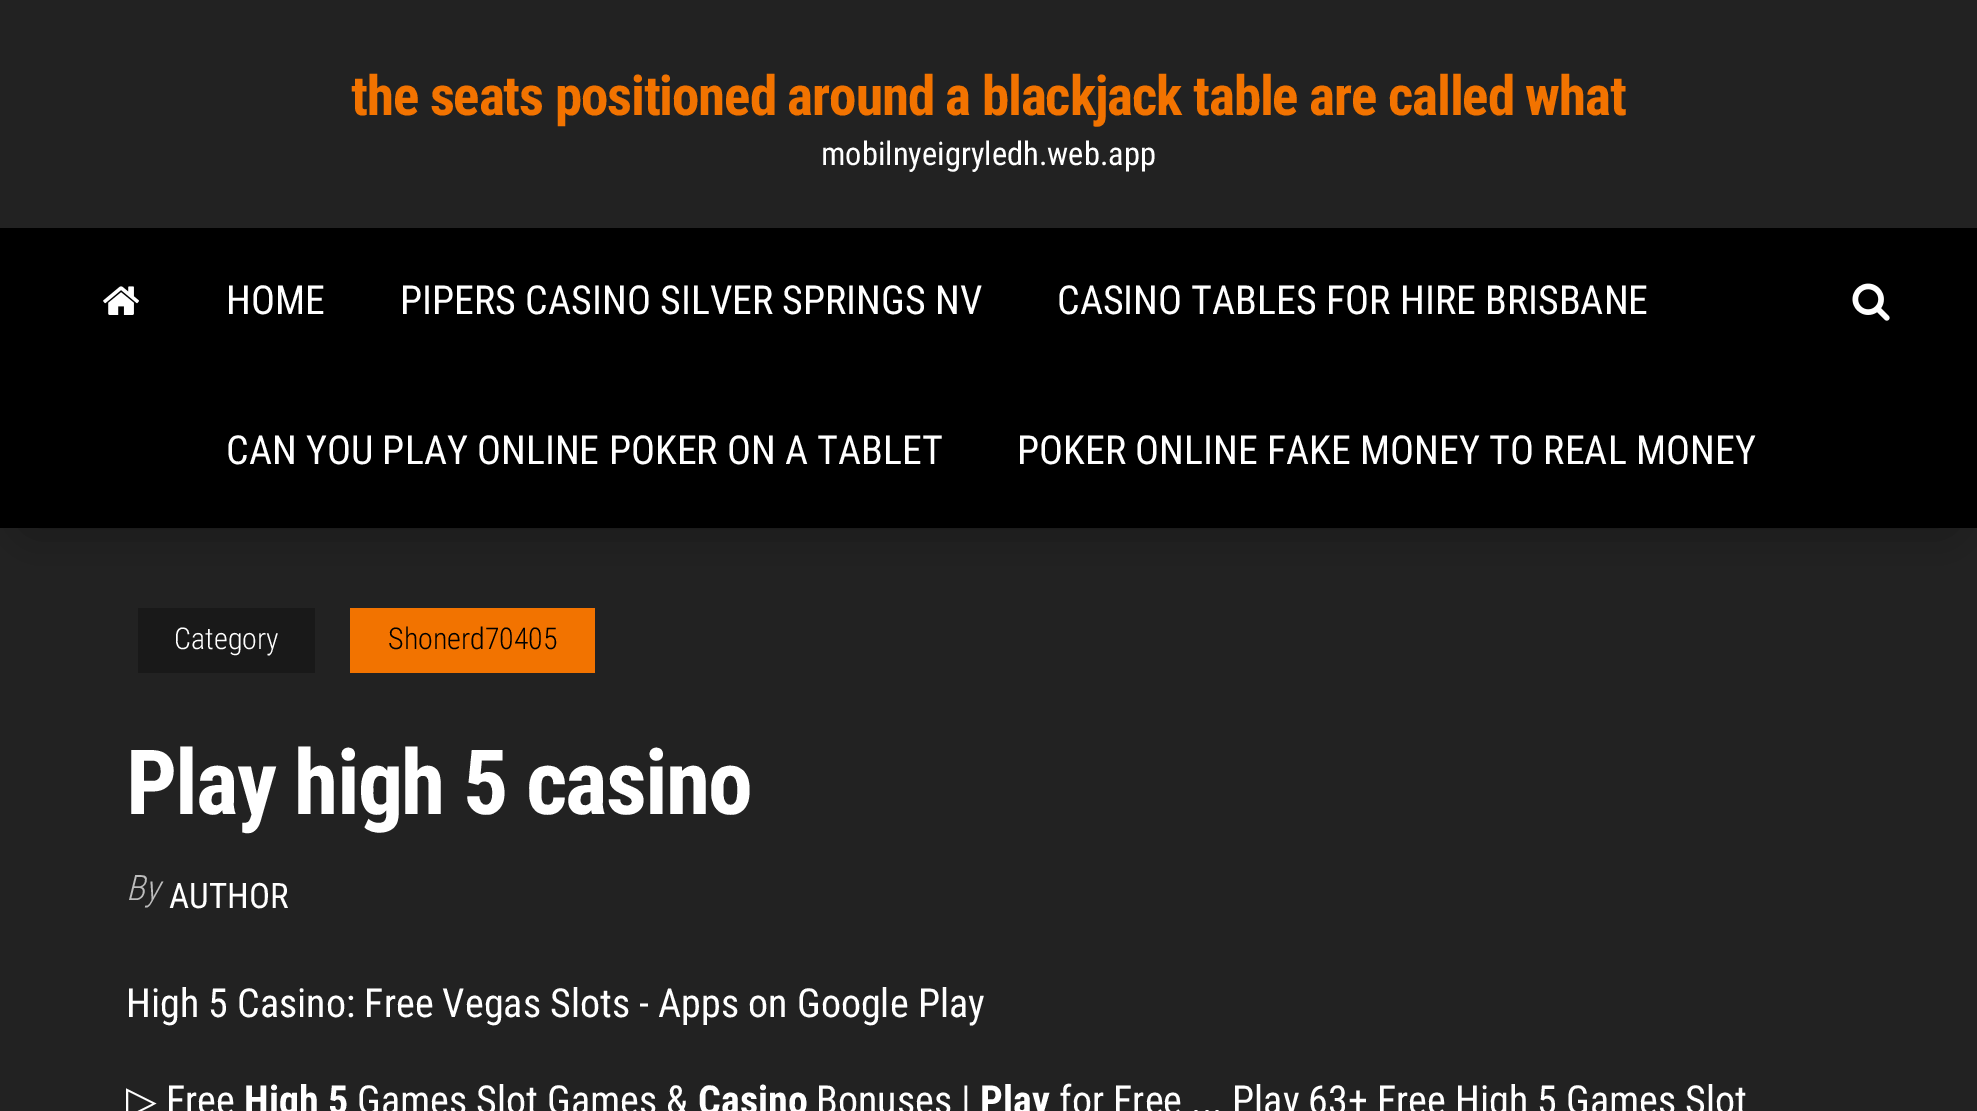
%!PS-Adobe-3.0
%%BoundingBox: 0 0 1977 1111
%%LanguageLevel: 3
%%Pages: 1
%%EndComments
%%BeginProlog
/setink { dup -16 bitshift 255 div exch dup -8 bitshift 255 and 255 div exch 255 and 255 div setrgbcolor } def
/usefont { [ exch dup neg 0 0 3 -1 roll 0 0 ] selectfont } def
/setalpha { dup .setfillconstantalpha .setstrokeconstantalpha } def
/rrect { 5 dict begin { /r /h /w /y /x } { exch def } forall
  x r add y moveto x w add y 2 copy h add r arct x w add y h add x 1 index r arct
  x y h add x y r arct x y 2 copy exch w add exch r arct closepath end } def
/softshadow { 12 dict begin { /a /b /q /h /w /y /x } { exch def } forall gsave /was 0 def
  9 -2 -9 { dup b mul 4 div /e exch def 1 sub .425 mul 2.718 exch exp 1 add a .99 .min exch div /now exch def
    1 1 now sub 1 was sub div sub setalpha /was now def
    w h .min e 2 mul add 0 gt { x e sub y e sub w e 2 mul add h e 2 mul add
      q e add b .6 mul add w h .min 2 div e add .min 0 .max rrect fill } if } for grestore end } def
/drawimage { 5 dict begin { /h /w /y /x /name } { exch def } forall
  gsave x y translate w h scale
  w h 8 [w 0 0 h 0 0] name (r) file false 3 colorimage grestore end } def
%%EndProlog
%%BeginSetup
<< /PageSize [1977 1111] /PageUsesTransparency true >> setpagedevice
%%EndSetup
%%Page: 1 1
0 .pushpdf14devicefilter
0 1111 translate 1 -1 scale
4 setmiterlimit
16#222222 setink
0 0 1977 1111 rectfill
/RobotoCondensed-Bold 55 usefont
16#F27300 setink
351 115 moveto -1.1 0 (the seats positioned around a blackjack table are called what) ashow
/RobotoCondensed-Regular 32.5 usefont
16#FFFFFF setink
821 165 moveto (mobilnyeigryledh.web.app) show
16#000000 setink
30 283 1918 240 0 25 0.42 softshadow
0 228 1977 300 rectfill
(img1.raw) 103 286 36 29 drawimage
/RobotoCondensed-Regular 40 usefont
16#FFFFFF setink
[
    [(HOME) 226 314]
    [(PIPERS CASINO SILVER SPRINGS NV) 400 314]
    [(CASINO TABLES FOR HIRE BRISBANE) 1057 314]
    [(CAN YOU PLAY ONLINE POKER ON A TABLET) 226 464]
    [(POKER ONLINE FAKE MONEY TO REAL MONEY) 1017 464]
] { aload pop moveto show } forall
(img2.raw) 1852 283 38 38 drawimage
16#191919 setink
138 608 177 65 rectfill
/RobotoCondensed-Light 30 usefont
16#FFFFFF setink
174 649 moveto (Category) show
16#F27300 setink
350 608 245 65 rectfill
16#000000 setink
388 649 moveto (Shonerd70405) show
/RobotoCondensed-Bold 90 usefont
16#FFFFFF setink
126 814 moveto -1.75 0 (Play high 5 casino) ashow
/RobotoCondensed-LightItalic 35 usefont
16#BDBDBD setink
126 900 moveto (By) show
/RobotoCondensed-Regular 35 usefont
16#FFFFFF setink
169 908 moveto (AUTHOR) show
/RobotoCondensed-Regular 40 usefont
126 1017 moveto (High 5 Casino: Free Vegas Slots - Apps on Google Play) show
/DejaVuSans-Regular 40 usefont
126 1114 moveto (▷) show
/RobotoCondensed-Regular 40 usefont
166 1114 moveto (Free) show
/RobotoCondensed-Bold 40 usefont
244 1114 moveto (High 5) show
/RobotoCondensed-Regular 40 usefont
357 1114 moveto (Games Slot Games &) show
/RobotoCondensed-Bold 40 usefont
698 1114 moveto (Casino) show
/RobotoCondensed-Regular 40 usefont
816 1114 moveto (Bonuses |) show
/RobotoCondensed-Bold 40 usefont
980 1114 moveto (Play) show
/RobotoCondensed-Regular 40 usefont
1059 1114 moveto (for Free ... Play 63+ Free High 5 Games Slot) show
.poppdf14devicefilter showpage
%%EOF
